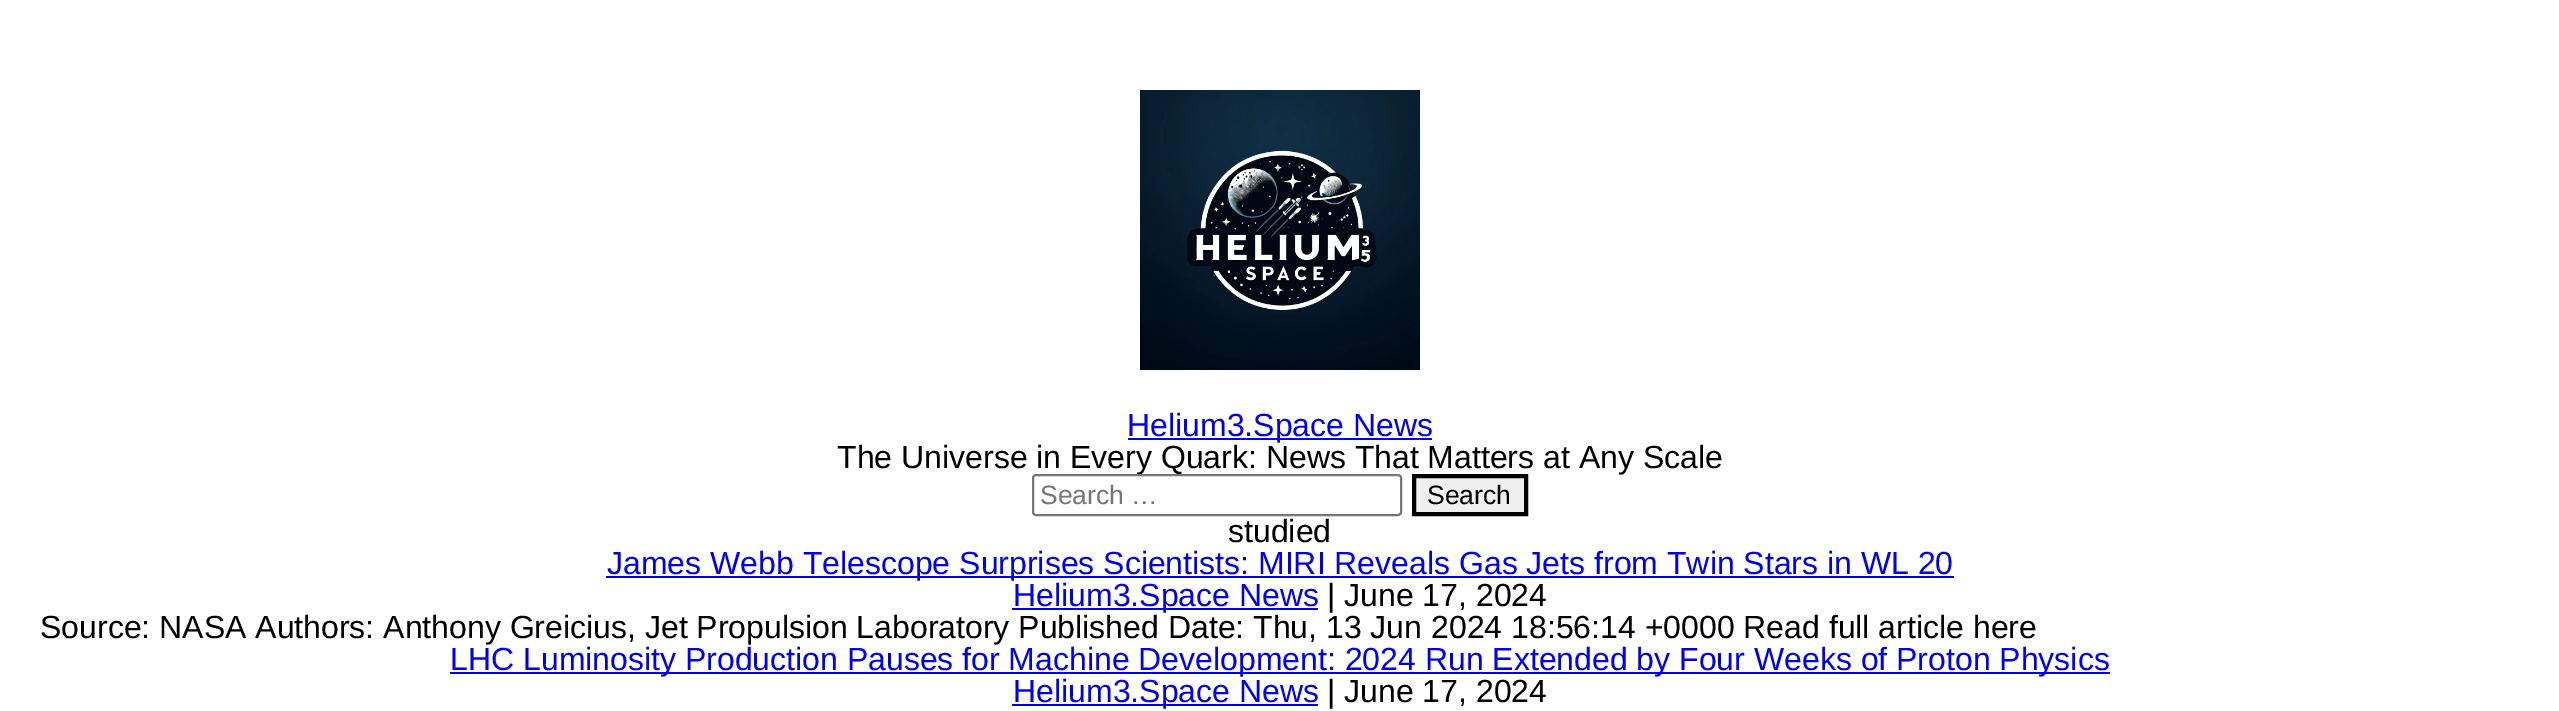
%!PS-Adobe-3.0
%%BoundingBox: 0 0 2559 711
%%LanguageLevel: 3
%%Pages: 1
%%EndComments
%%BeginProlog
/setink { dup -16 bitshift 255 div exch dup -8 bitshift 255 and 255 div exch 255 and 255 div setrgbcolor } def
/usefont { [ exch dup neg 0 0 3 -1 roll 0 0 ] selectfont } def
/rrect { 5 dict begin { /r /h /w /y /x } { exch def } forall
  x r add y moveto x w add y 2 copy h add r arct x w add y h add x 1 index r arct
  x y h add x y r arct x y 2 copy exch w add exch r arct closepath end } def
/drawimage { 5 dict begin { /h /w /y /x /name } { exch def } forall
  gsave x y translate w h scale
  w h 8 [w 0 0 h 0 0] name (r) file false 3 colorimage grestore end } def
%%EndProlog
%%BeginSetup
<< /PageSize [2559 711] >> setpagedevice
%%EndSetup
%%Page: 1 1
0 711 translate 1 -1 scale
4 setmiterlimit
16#FFFFFF setink
0 0 2559 711 rectfill
(img1.raw) 1140 90 280 280 drawimage
16#0000EE setink
1128 438 304 2 rectfill
/LiberationSans-Regular 32 usefont
1127 436 moveto (Helium3.Space News) show
16#000000 setink
837 468 moveto (The Universe in Every Quark: News That Matters at Any Scale) show
16#FFFFFF setink
1033 475 368 40 3 rrect gsave fill grestore
16#767676 setink
2 setlinewidth
stroke
/LiberationSans-Regular 26.5 usefont
16#757575 setink
1040 504 moveto (Search …) show
16#EFEFEF setink
1414 476 moveto 1526 476 lineto 1526 514 lineto 1414 514 lineto closepath gsave fill grestore
16#000000 setink
4 setlinewidth
stroke
1427 504 moveto (Search) show
/LiberationSans-Regular 32 usefont
1228 542 moveto (studied) show
16#0000EE setink
606 576 1348 2 rectfill
607 574 moveto (James Webb Telescope Surprises Scientists: MIRI Reveals Gas Jets from Twin Stars in WL 20) show
1012 608 306 2 rectfill
1013 606 moveto (Helium3.Space News) show
16#000000 setink
1327 606 moveto (| June 17, 2024) show
40 638 moveto (Source: NASA Authors: Anthony Greicius, Jet Propulsion Laboratory Published Date: Thu, 13 Jun 2024 18:56:14 +0000 Read full article here) show
16#0000EE setink
450 672 1660 2 rectfill
450 670 moveto (LHC Luminosity Production Pauses for Machine Development: 2024 Run Extended by Four Weeks of Proton Physics) show
1012 704 306 2 rectfill
1013 702 moveto (Helium3.Space News) show
16#000000 setink
1327 702 moveto (| June 17, 2024) show
showpage
%%EOF
